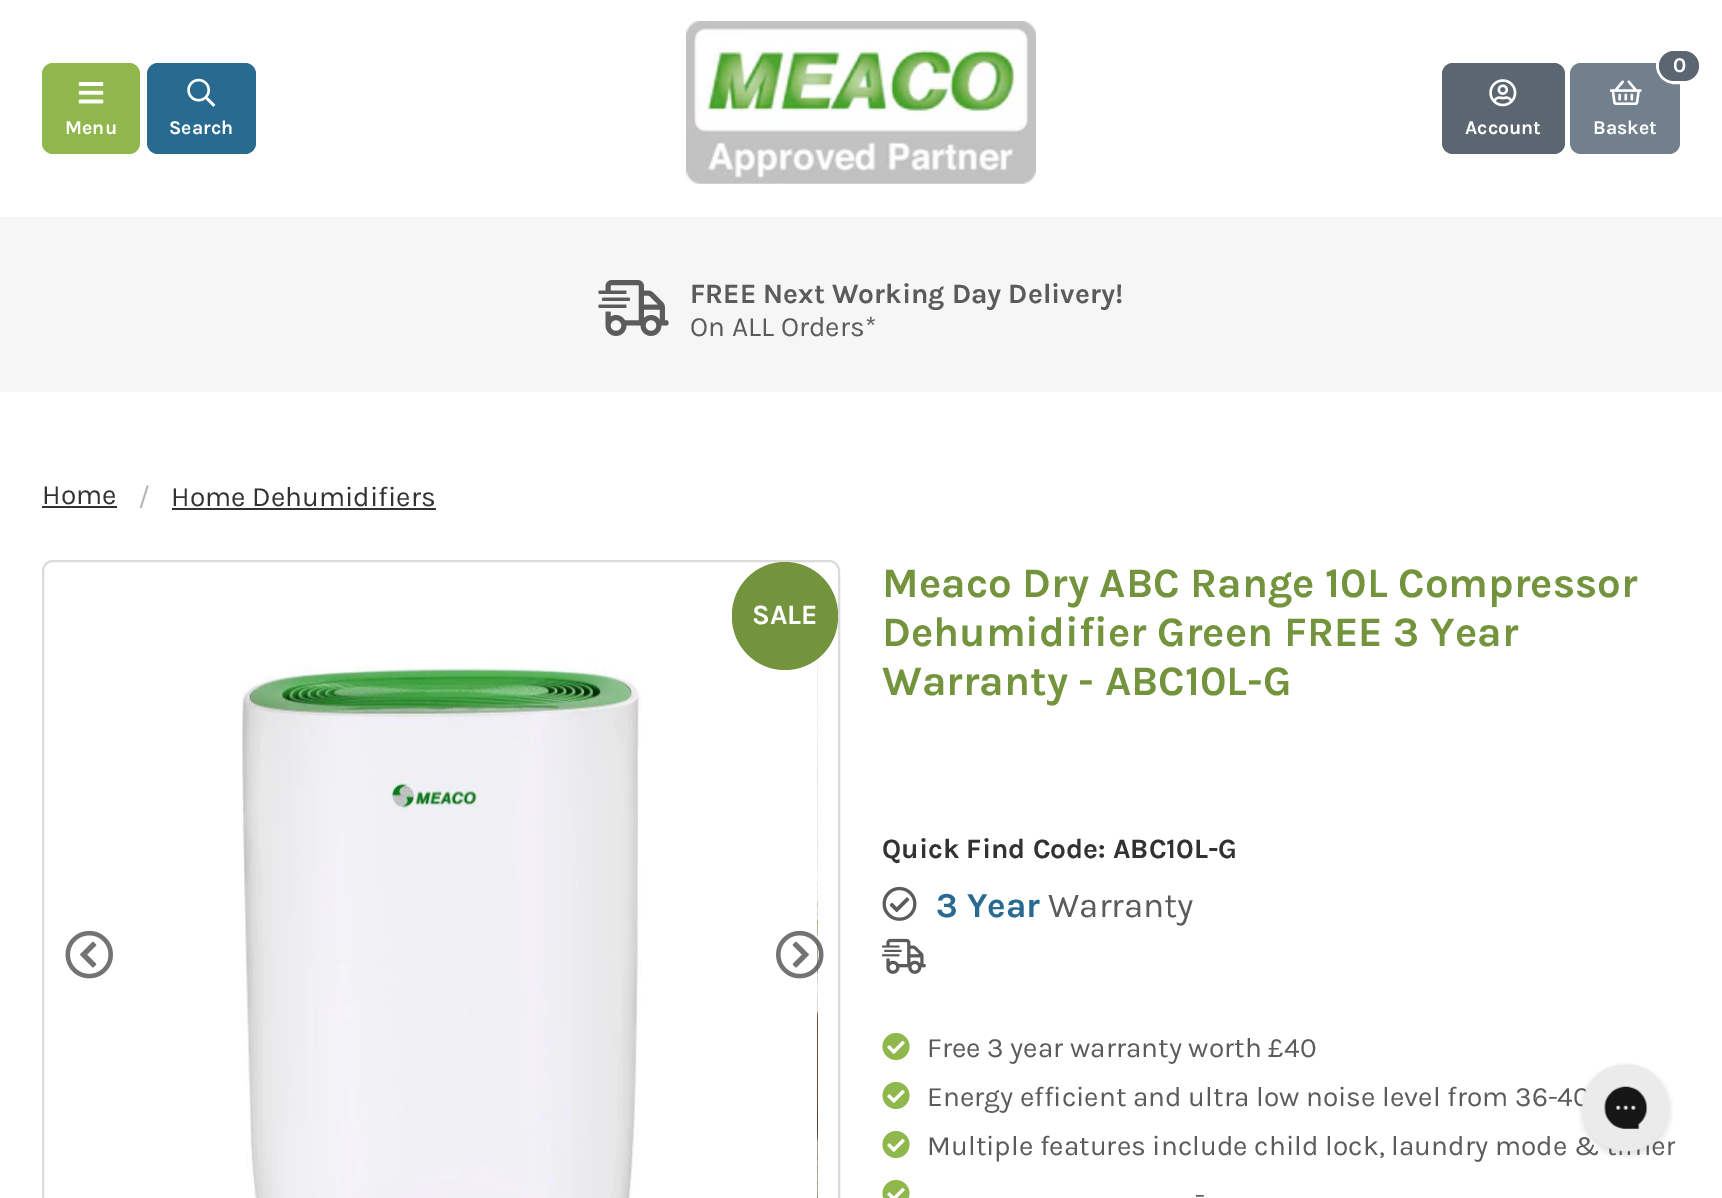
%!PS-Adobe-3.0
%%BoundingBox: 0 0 1722 1198
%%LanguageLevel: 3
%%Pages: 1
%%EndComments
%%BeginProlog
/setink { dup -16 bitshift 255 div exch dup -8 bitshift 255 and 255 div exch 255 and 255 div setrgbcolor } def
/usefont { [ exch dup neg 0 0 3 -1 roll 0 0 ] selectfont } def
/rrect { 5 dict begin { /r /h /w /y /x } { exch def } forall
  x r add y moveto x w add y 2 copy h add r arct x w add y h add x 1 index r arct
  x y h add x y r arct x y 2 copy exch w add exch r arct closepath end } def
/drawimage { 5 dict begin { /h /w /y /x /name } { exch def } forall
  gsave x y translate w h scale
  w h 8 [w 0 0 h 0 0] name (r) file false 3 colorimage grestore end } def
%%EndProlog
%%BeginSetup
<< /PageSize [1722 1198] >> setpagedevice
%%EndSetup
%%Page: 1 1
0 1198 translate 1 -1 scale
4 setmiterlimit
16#FFFFFF setink
0 0 1722 1198 rectfill
16#8FB74C setink
42 63 98 91 11 rrect fill
(img1.raw) 78 82 26 22 drawimage
/Karla-Bold 19.5 usefont
16#FFFFFF setink
65 134 moveto (Menu) show
16#296A91 setink
147 63 109 91 11 rrect fill
(img2.raw) 187 78 29 29 drawimage
16#FFFFFF setink
169 134 moveto (Search) show
(img3.raw) 686 21 350 163 drawimage
16#5B6670 setink
1442 63 123 91 11 rrect fill
(img4.raw) 1489 79 28 28 drawimage
16#FFFFFF setink
1465 134 moveto (Account) show
16#72808D setink
1570 63 110 91 11 rrect fill
16#FFFFFF setink
3 setlinewidth
1657.5 48.5 44 34 17 rrect stroke
16#5B6670 setink
1659 51 40 30 15 rrect fill
/Karla-Bold 21 usefont
16#FFFFFF setink
1673 72 moveto (0) show
(img5.raw) 1610 80 32 25 drawimage
/Karla-Bold 19.5 usefont
1593 134 moveto (Basket) show
16#F6F6F6 setink
0 217 1722 175 rectfill
(img6.raw) 598 280 71 56 drawimage
/Karla-Bold 28 usefont
16#5B5B5B setink
690 303 moveto (FREE Next Working Day Delivery!) show
/Karla-Regular 28 usefont
690 336 moveto (On ALL Orders*) show
16#323232 setink
42 504 moveto (Home) show
42 506 75 2 rectfill
16#B5B5B5 setink
138 506 moveto (/) show
16#323232 setink
171 506 moveto (Home Dehumidifiers) show
172 508 264 2 rectfill
16#DBDBDB setink
2 setlinewidth
43 561 796 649 10 rrect stroke
(img9.raw) 817 658 1 540 drawimage
16#73943C setink
732 562 106 108 53 rrect fill
/Karla-Bold 28 usefont
16#FFFFFF setink
752 624 moveto (SALE) show
(img7.raw) 65 930 48 49 drawimage
(img8.raw) 241 662 400 536 drawimage
(img10.raw) 776 930 48 49 drawimage
/Karla-Bold 42 usefont
16#73943C setink
[
    [(Meaco Dry ABC Range 10L Compressor) 882 597]
    [(Dehumidifier Green FREE 3 Year) 882 646]
    [(Warranty - ABC10L-G) 882 695]
] { aload pop moveto show } forall
/Karla-Bold 28 usefont
16#323232 setink
882 858 moveto (Quick Find Code: ABC10L-G) show
(img11.raw) 882 886 35 35 drawimage
/Karla-Bold 35 usefont
16#296A91 setink
936 917 moveto (3 Year) show
/Karla-Regular 35 usefont
16#5B5B5B setink
1048 917 moveto (Warranty) show
(img12.raw) 882 938 44 36 drawimage
(img13.raw) 882 1033 28 27 drawimage
/Karla-Regular 28 usefont
927 1057 moveto (Free 3 year warranty worth £40) show
(img13.raw) 882 1082 28 27 drawimage
927 1106 moveto (Energy efficient and ultra low noise level from 36-40) show
(img13.raw) 882 1131 28 27 drawimage
927 1155 moveto (Multiple features include child lock, laundry mode &) show
1651 1155 moveto (er) show
(img14.raw) 882 1180 28 18 drawimage
1195 1204 moveto (-) show
(img15.raw) 1579 1063 94 95 drawimage
showpage
%%EOF
